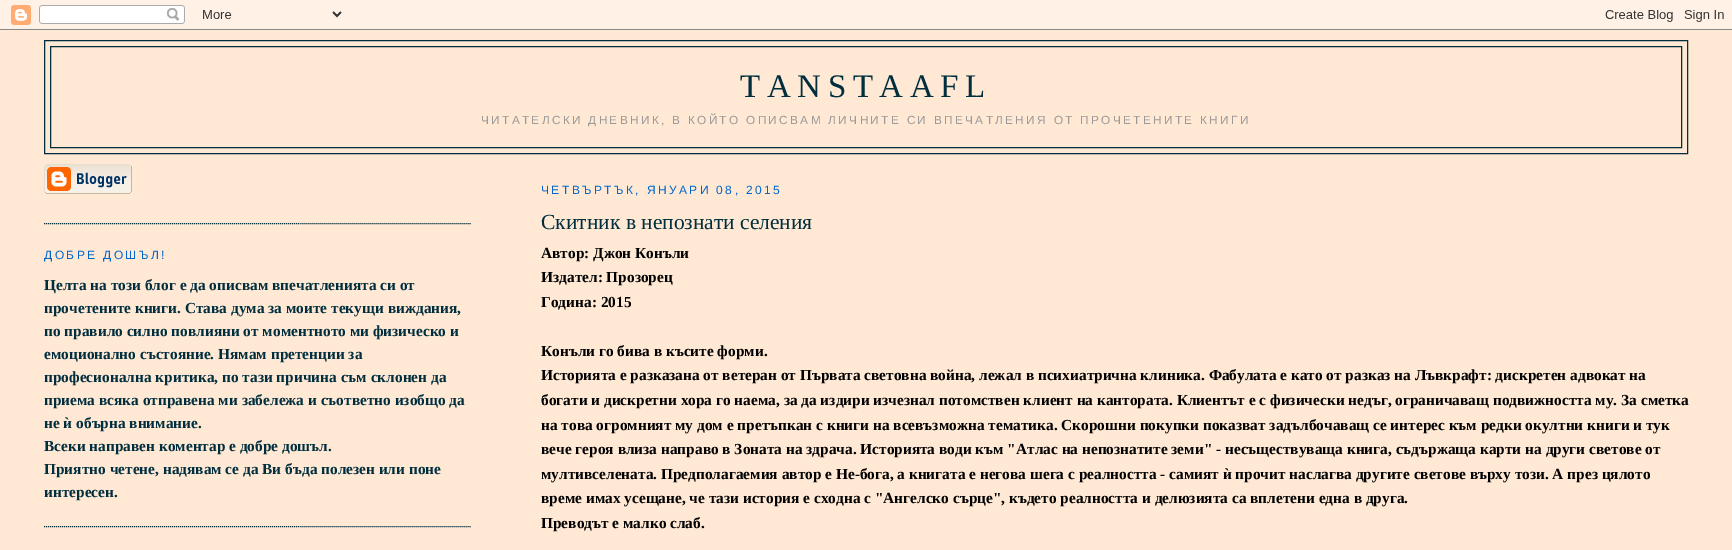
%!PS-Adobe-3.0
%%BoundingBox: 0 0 1732 550
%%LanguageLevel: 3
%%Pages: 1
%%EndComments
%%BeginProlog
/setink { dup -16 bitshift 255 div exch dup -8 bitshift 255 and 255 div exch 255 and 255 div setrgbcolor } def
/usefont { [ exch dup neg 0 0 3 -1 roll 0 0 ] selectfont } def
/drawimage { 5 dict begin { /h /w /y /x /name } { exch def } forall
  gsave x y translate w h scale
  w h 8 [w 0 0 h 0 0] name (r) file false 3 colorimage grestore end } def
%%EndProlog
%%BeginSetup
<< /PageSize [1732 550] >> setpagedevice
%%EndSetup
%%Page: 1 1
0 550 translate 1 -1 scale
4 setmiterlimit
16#FFE8D4 setink
0 0 1732 550 rectfill
(img1.raw) 0 0 1732 30 drawimage
16#002E3F setink
44.5 40.5 1643 113 rectstroke
50.5 46.5 1631 101 rectstroke
/LiberationSerif-Regular 33 usefont
740 97 moveto 6.6 0 (TANSTAAFL) ashow
/LiberationSans-Regular 11.8 usefont
16#999999 setink
481 124 moveto 2.35 0 (ЧИТАТЕЛСКИ ДНЕВНИК, В КОЙТО ОПИСВАМ ЛИЧНИТЕ СИ ВПЕЧАТЛЕНИЯ ОТ ПРОЧЕТЕНИТЕ КНИГИ) ashow
16#002E3F setink
[1 1] 0 setdash
44 223.5 moveto 472 223.5 lineto stroke
(img2.raw) 44 164 88 30 drawimage
44 526.5 moveto 472 526.5 lineto stroke
/LiberationSans-Regular 12 usefont
16#0066CC setink
44 259 moveto 2.4 0 (ДОБРЕ ДОШЪЛ!) ashow
/LiberationSerif-Bold 15.35 usefont
16#002E3F setink
[
    [(Целта на този блог е да описвам впечатленията си от) 44 290]
    [(прочетените книги. Става дума за моите текущи виждания,) 44 313]
    [(по правило силно повлияни от моментното ми физическо и) 44 336]
    [(емоционално състояние. Нямам претенции за) 44 359]
    [(професионална критика, по тази причина съм склонен да) 44 382]
    [(приема всяка отправена ми забележа и съответно изобщо да) 44 405]
    [(не ѝ обърна внимание.) 44 428]
    [(Всеки направен коментар е добре дошъл.) 44 451]
    [(Приятно четене, надявам се да Ви бъда полезен или поне) 44 474]
    [(интересен.) 44 497]
] { aload pop moveto show } forall
/LiberationSans-Regular 12 usefont
16#0066CC setink
541 194 moveto 2.4 0 (ЧЕТВЪРТЪК, ЯНУАРИ 08, 2015) ashow
/LiberationSerif-Regular 21.5 usefont
16#002E3F setink
541 229 moveto (Скитник в непознати селения) show
/LiberationSerif-Bold 15.35 usefont
16#000000 setink
[
    [(Автор: Джон Конъли) 541 258]
    [(Издател: Прозорец) 541 282]
    [(Година: 2015) 541 307]
    [(Конъли го бива в късите форми.) 541 356]
    [(Историята е разказана от ветеран от Първата световна война, лежал в психиатрична клиника. Фабулата е като от разказ на Лъвкрафт: дискретен адвокат на) 541 380]
    [(богати и дискретни хора го наема, за да издири изчезнал потомствен клиент на кантората. Клиентът е с физически недъг, ограничаващ подвижността му. За сметка) 541 405]
    [(на това огромният му дом е претъпкан с книги на всевъзможна тематика. Скорошни покупки показват задълбочаващ се интерес към редки окултни книги и тук) 541 430]
    [(вече героя влиза направо в Зоната на здрача. Историята води към "Атлас на непознатите земи" - несъществуваща книга, съдържаща карти на други светове от) 541 454]
    [(мултивселената. Предполагаемия автор е Не-бога, а книгата е негова шега с реалността - самият ѝ прочит наслагва другите светове върху този. А през цялото) 541 479]
    [(време имах усещане, че тази история е сходна с "Ангелско сърце", където реалността и делюзията са вплетени една в друга.) 541 503]
    [(Преводът е малко слаб.) 541 528]
] { aload pop moveto show } forall
showpage
%%EOF
